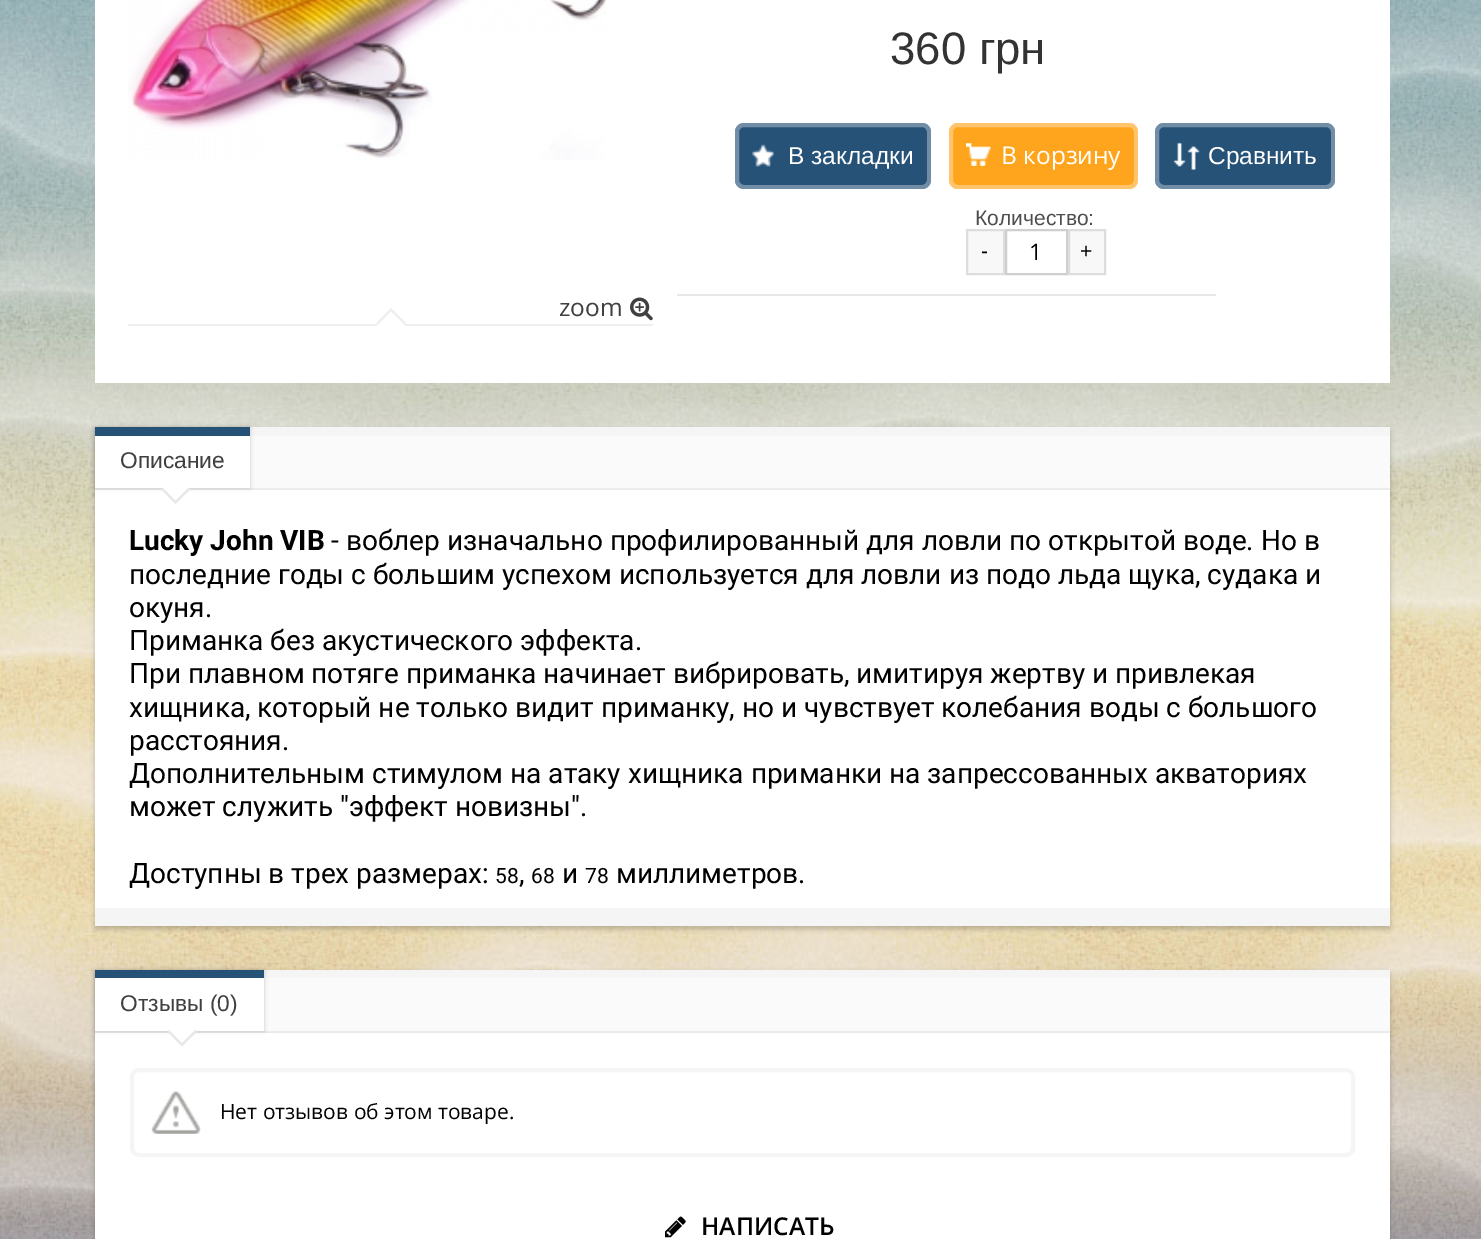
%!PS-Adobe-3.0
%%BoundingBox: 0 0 1481 1239
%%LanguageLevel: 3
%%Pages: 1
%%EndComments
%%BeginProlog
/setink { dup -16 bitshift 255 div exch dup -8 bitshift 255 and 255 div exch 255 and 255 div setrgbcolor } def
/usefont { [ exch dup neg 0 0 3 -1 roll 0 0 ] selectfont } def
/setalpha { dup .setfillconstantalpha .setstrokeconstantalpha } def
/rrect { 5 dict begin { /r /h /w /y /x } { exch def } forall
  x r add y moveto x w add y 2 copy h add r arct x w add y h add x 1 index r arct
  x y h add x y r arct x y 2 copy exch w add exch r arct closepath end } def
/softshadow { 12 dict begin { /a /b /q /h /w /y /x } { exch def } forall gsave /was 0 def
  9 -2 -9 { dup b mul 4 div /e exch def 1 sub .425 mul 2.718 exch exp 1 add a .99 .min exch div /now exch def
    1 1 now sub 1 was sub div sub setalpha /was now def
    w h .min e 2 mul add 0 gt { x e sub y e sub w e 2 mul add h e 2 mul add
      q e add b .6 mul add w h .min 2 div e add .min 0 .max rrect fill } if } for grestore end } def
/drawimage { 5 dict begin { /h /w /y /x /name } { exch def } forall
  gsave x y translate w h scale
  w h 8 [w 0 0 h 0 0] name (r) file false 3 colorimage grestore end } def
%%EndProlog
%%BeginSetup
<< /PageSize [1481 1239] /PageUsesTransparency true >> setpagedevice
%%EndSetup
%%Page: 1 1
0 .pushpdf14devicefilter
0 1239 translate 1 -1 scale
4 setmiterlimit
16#FFFFFF setink
0 0 1481 1239 rectfill
(img1.raw) 0 0 1481 1239 drawimage
95 0 1295 383 rectfill
/LiberationSans-Regular 45.5 usefont
16#333333 setink
890 64 moveto (360 грн) show
16#E7E7E7 setink
677 294 539 2 rectfill
16#275278 setink
735 123 196 66 9 rrect fill
(img2.raw) 752 144 22 23 drawimage
0.35 setalpha
16#FFFFFF setink
4 setlinewidth
737 125 192 62 7 rrect stroke
/LiberationSans-Regular 24.5 usefont
1 setalpha
788 164 moveto (В закладки) show
16#FFA41D setink
949 123 189 66 9 rrect fill
(img3.raw) 966 143 25 23 drawimage
0.35 setalpha
16#FFFFFF setink
951 125 185 62 7 rrect stroke
/OpenSans-Regular 24.5 usefont
1 setalpha
1001 164 moveto (В корзину) show
16#275278 setink
1155 123 180 66 9 rrect fill
(img4.raw) 1173 142 27 28 drawimage
0.35 setalpha
16#FFFFFF setink
1157 125 176 62 7 rrect stroke
/LiberationSans-Regular 24.5 usefont
1 setalpha
1208 164 moveto (Сравнить) show
/LiberationSans-Regular 21 usefont
16#4D4D4D setink
975 225 moveto (Количество:) show
16#F8F8F8 setink
967 230 moveto 1004 230 lineto 1004 274 lineto 967 274 lineto closepath gsave fill grestore
16#DDDDDD setink
2 setlinewidth
stroke
16#000000 setink
981 258 moveto (-) show
16#CFCFCF setink
1006 230 61 44 rectstroke
/OpenSans-Regular 22.75 usefont
16#000000 setink
1029 260 moveto (1) show
16#F8F8F8 setink
1069 230 moveto 1105 230 lineto 1105 274 lineto 1069 274 lineto closepath gsave fill grestore
16#DDDDDD setink
stroke
/LiberationSans-Regular 21 usefont
16#000000 setink
1080 258 moveto (+) show
16#EEEEEE setink
128 324 525 2 rectfill
(img5.raw) 128 0 478 160 drawimage
391 308 moveto 406 323 lineto 391 338 lineto 376.5 323 lineto closepath fill
/OpenSans-Regular 24.5 usefont
16#404040 setink
559 316 moveto (zoom) show
(img6.raw) 630 297 23 24 drawimage
16#FFFFFF setink
391 311.5 moveto 406 326.5 lineto 391 341.5 lineto 376.5 326.5 lineto closepath fill
16#000000 setink
95 431 1295 63 0 2.5 0.2 softshadow
[
    [250 436 1140 52 16#FAFAFA]
    [250 427 1140 9 16#F5F5F5]
    [95 488 1295 2 16#EEEEEE]
] { aload pop setink rectfill } forall
16#000000 setink
95 494 1295 435 0 2.5 0.2 softshadow
16#FFFFFF setink
95 490 1295 418 rectfill
16#000000 setink
95 427 155 61 0 2 0.2 softshadow
16#FFFFFF setink
95 436 155 52 rectfill
16#275278 setink
95 427 155 9 rectfill
/LiberationSans-Regular 22.75 usefont
16#404040 setink
120 468 moveto (Описание) show
16#E7E7E7 setink
175.5 474.5 moveto 190.5 489 lineto 175.5 504 lineto 161 489 lineto closepath fill
16#FFFFFF setink
175.5 471 moveto 190.5 485.5 lineto 175.5 500.5 lineto 161 485.5 lineto closepath fill
16#F5F5F5 setink
95 908 1295 18 rectfill
/Roboto-Bold 28 usefont
16#000000 setink
129 550 moveto (Lucky John VIB) show
/Roboto-Regular 28 usefont
[
    [(- воблер изначально профилированный для ловли по открытой воде. Но в) 331 550]
    [(последние годы с большим успехом используется для ловли из подо льда щука, судака и) 129 584]
    [(окуня.) 129 617]
    [(Приманка без акустического эффекта.) 129 650]
    [(При плавном потяге приманка начинает вибрировать, имитируя жертву и привлекая) 129 683]
    [(хищника, который не только видит приманку, но и чувствует колебания воды с большого) 129 717]
    [(расстояния.) 129 750]
    [(Дополнительным стимулом на атаку хищника приманки на запрессованных акваториях) 129 783]
    [(может служить "эффект новизны".) 129 816]
    [(Доступны в трех размерах:) 129 883]
] { aload pop moveto show } forall
/Roboto-Regular 21 usefont
495 883 moveto (58) show
/Roboto-Regular 28 usefont
519 883 moveto (,) show
/Roboto-Regular 21 usefont
531 883 moveto (68) show
/Roboto-Regular 28 usefont
562 883 moveto (и) show
/Roboto-Regular 21 usefont
585 883 moveto (78) show
/Roboto-Regular 28 usefont
616 883 moveto (миллиметров.) show
95 973 1295 63 0 2.5 0.2 softshadow
[
    [264 978 1126 53 16#FAFAFA]
    [264 970 1126 8 16#F5F5F5]
    [95 1031 1295 2 16#EEEEEE]
] { aload pop setink rectfill } forall
16#000000 setink
95 1036 1295 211 0 2.5 0.2 softshadow
16#FFFFFF setink
95 1033 1295 206 rectfill
16#000000 setink
95 970 169 61 0 2 0.2 softshadow
16#FFFFFF setink
95 978 169 53 rectfill
16#275278 setink
95 970 169 8 rectfill
/LiberationSans-Regular 22.75 usefont
16#404040 setink
120 1011 moveto (Отзывы \(0\)) show
16#E7E7E7 setink
182 1017 moveto 197 1031.5 lineto 182 1046.5 lineto 167.5 1031.5 lineto closepath fill
16#FFFFFF setink
182 1013.5 moveto 197 1028 lineto 182 1043 lineto 167.5 1028 lineto closepath fill
(img7.raw) 151 1091 51 43 drawimage
16#F5F5F5 setink
4 setlinewidth
132 1070 1221 85 7 rrect stroke
/OpenSans-Regular 21 usefont
16#000000 setink
220 1119 moveto (Нет отзывов об этом товаре.) show
(img8.raw) 665 1216 21 22 drawimage
/OpenSans-SemiBold 24.5 usefont
701 1235 moveto (НАПИСАТЬ) show
.poppdf14devicefilter showpage
%%EOF
